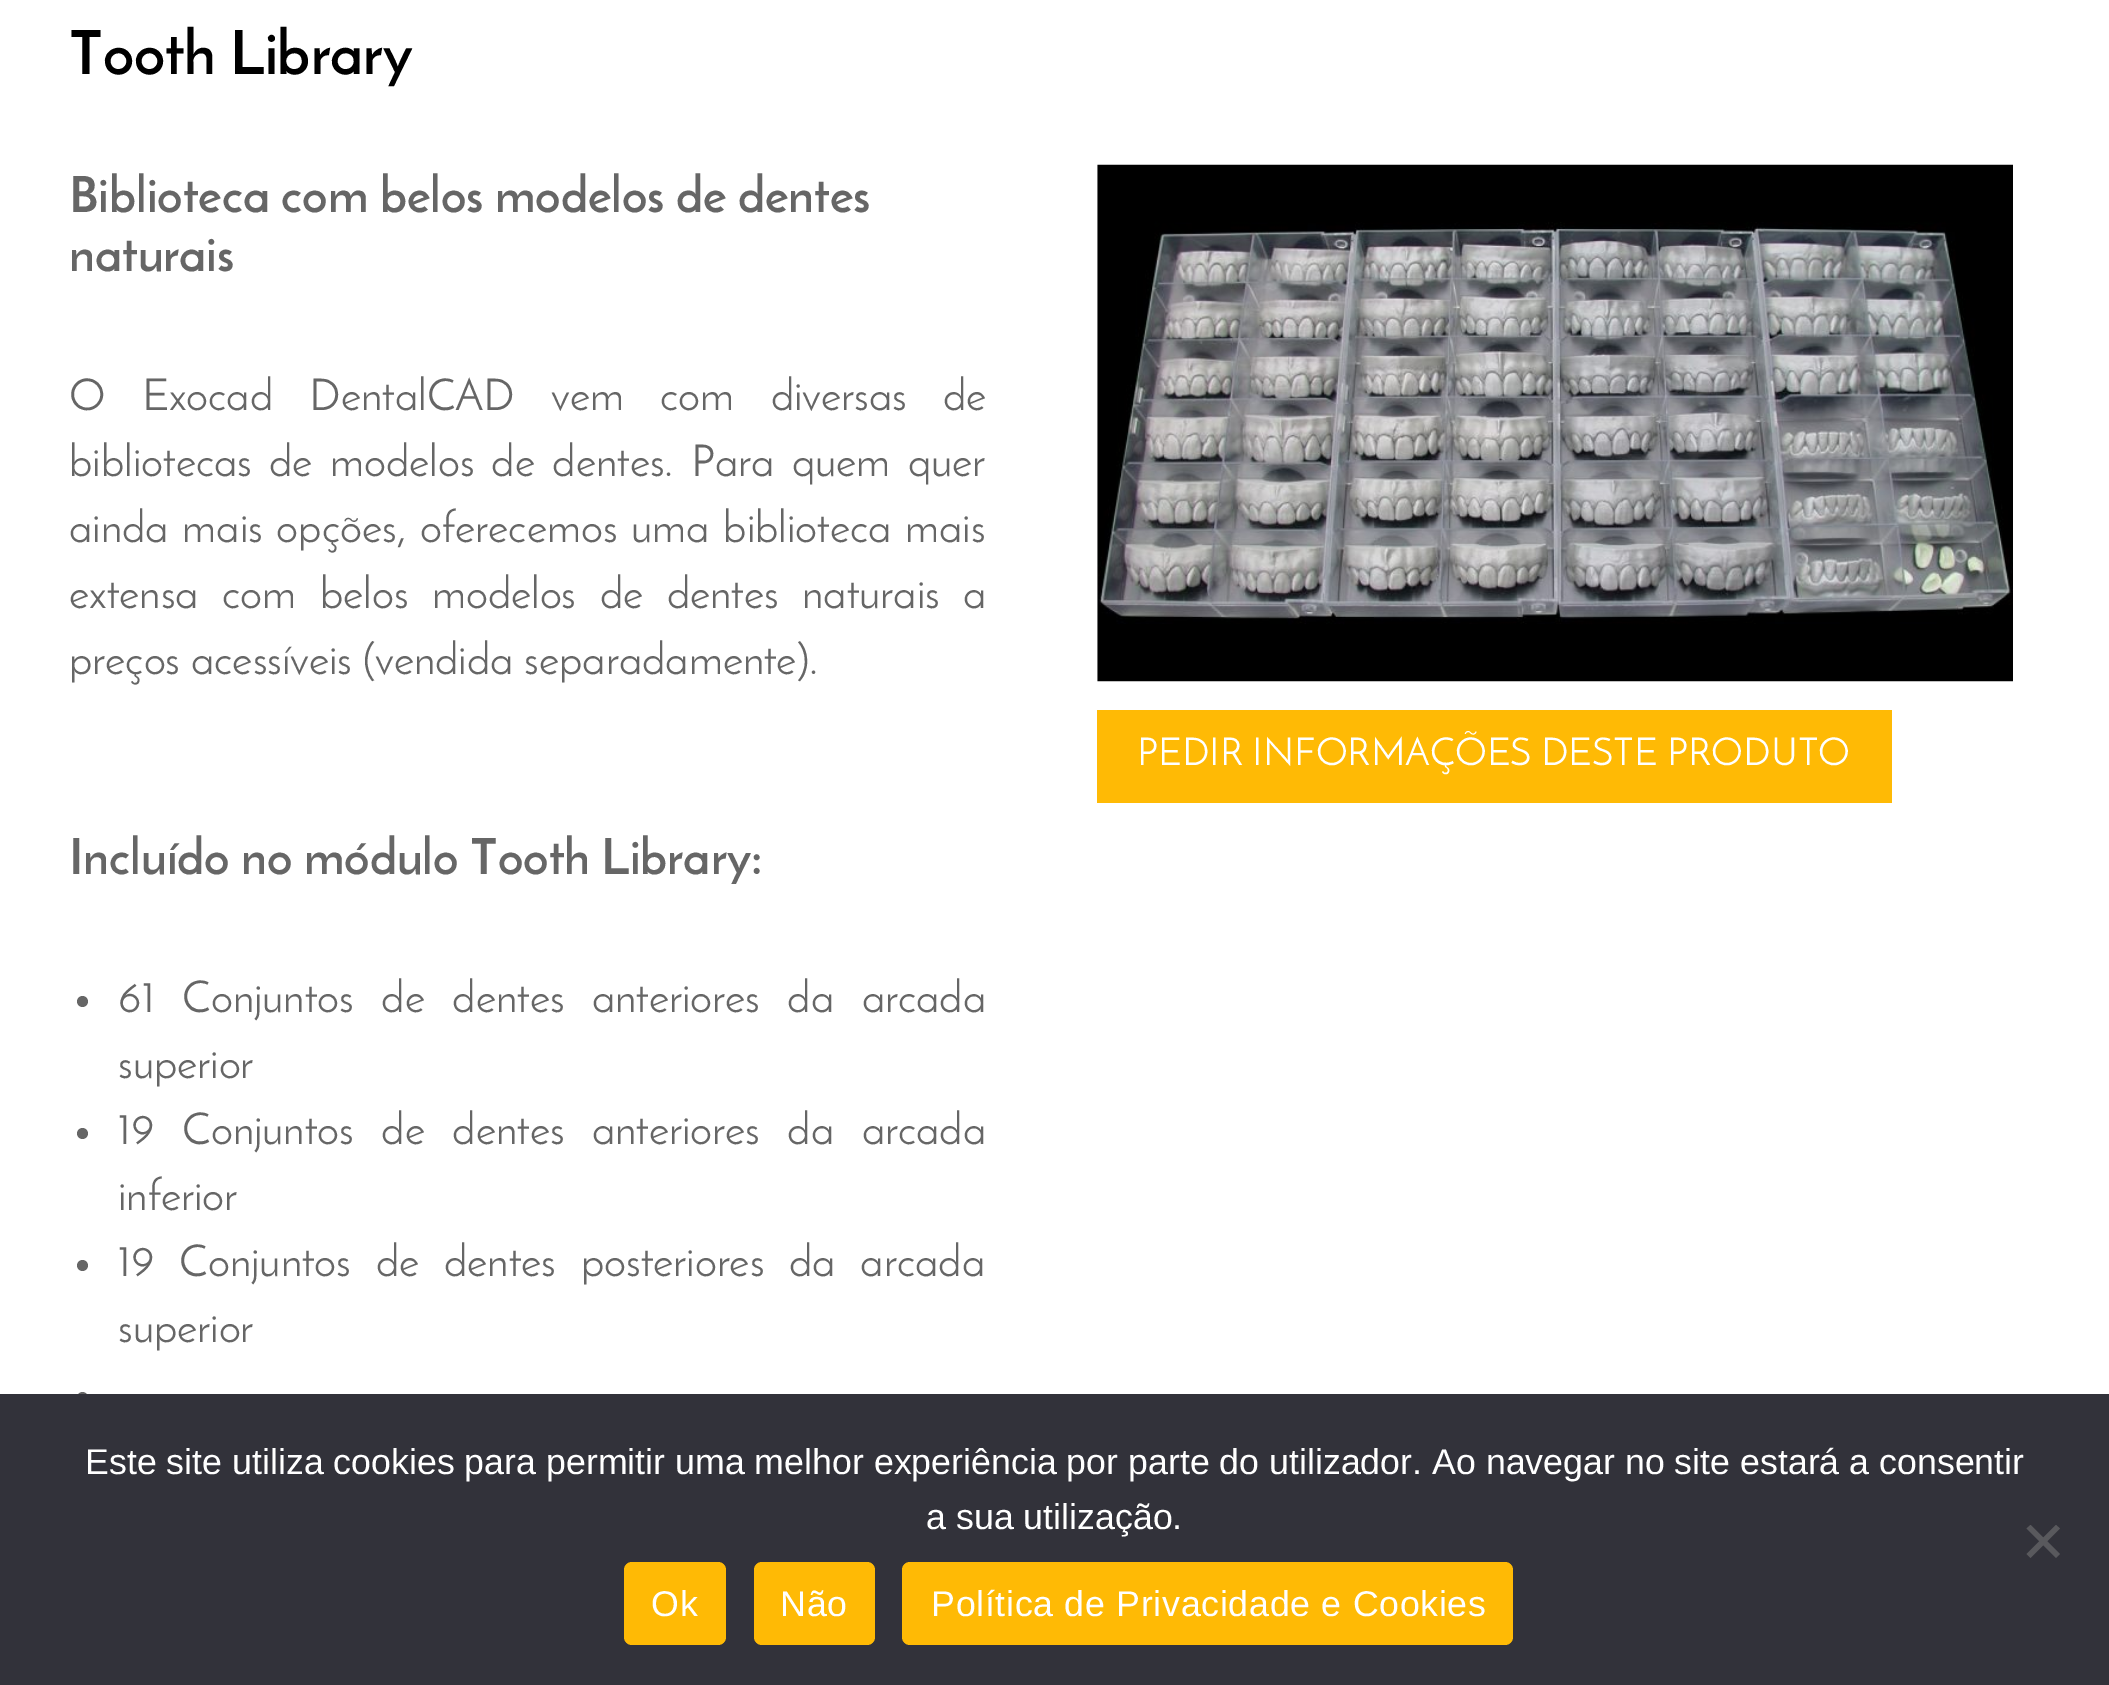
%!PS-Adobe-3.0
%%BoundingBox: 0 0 2109 1685
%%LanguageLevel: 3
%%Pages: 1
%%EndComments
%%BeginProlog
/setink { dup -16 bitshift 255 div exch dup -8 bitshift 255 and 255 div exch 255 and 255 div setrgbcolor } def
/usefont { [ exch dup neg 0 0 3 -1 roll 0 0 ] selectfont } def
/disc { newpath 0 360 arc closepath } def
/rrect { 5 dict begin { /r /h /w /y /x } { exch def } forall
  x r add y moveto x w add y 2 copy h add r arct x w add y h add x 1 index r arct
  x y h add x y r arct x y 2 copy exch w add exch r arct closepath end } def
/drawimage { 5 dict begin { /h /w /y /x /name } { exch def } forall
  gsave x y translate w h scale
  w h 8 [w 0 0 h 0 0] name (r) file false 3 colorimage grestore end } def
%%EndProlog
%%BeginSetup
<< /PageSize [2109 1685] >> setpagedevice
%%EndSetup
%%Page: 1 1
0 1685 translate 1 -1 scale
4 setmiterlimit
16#FFFFFF setink
0 0 2109 1685 rectfill
/JosefinSans-Bold 60.5 usefont
16#000000 setink
69 74 moveto (Tooth Library) show
/JosefinSans-Bold 49.5 usefont
16#666666 setink
69 212 moveto (Biblioteca com belos modelos de dentes) show
69 271 moveto (naturais) show
/JosefinSans-Regular 44 usefont
69 410 moveto 25.5 0 32 (O Exocad DentalCAD vem com diversas de) widthshow
69 476 moveto 6.5 0 32 (bibliotecas de modelos de dentes. Para quem quer) widthshow
69 542 moveto 3 0 32 (ainda mais opções, oferecemos uma biblioteca mais) widthshow
69 608 moveto 12.75 0 32 (extensa com belos modelos de dentes naturais a) widthshow
69 674 moveto (preços acessíveis \(vendida separadamente\).) show
/JosefinSans-Bold 49.5 usefont
69 874 moveto (Incluído no módulo Tooth Library:) show
82.5 1001.5 5.5 disc fill
/JosefinSans-Regular 44 usefont
118 1012 moveto 16.75 0 32 (61 Conjuntos de dentes anteriores da arcada) widthshow
118 1078 moveto (superior) show
82.5 1133.5 5.5 disc fill
118 1144 moveto 16.75 0 32 (19 Conjuntos de dentes anteriores da arcada) widthshow
118 1210 moveto (inferior) show
82.5 1265.5 5.5 disc fill
118 1276 moveto 14 0 32 (19 Conjuntos de dentes posteriores da arcada) widthshow
118 1342 moveto (superior) show
82.5 1397.5 5.5 disc fill
(img1.raw) 1097 164 916 518 drawimage
16#FFBA05 setink
1097 710 795 93 rectfill
/JosefinSans-Regular 38.5 usefont
16#FFFFFF setink
1137 765 moveto (PEDIR INFORMAÇÕES DESTE PRODUTO) show
16#32323A setink
0 1394 2109 291 rectfill
/LiberationSans-Regular 35.75 usefont
16#FFFFFF setink
85 1474 moveto (Este site utiliza cookies para permitir uma melhor experiência por parte do utilizador. Ao navegar no site estará a consentir) show
926 1529 moveto (a sua utilização.) show
16#59595D setink
2056 1525 moveto 2060 1528.5 lineto 2030.5 1558 lineto 2026.5 1554 lineto closepath fill
2026.5 1528.5 moveto 2030.5 1525 lineto 2060 1554 lineto 2056 1558 lineto closepath fill
16#FFBA05 setink
624 1562 102 83 8 rrect fill
16#FFFFFF setink
651 1616 moveto 0.7 0 (Ok) ashow
16#FFBA05 setink
754 1562 121 83 8 rrect fill
16#FFFFFF setink
780 1616 moveto 0.7 0 (Não) ashow
16#FFBA05 setink
902 1562 611 83 8 rrect fill
16#FFFFFF setink
931 1616 moveto 0.7 0 (Política de Privacidade e Cookies) ashow
showpage
%%EOF
